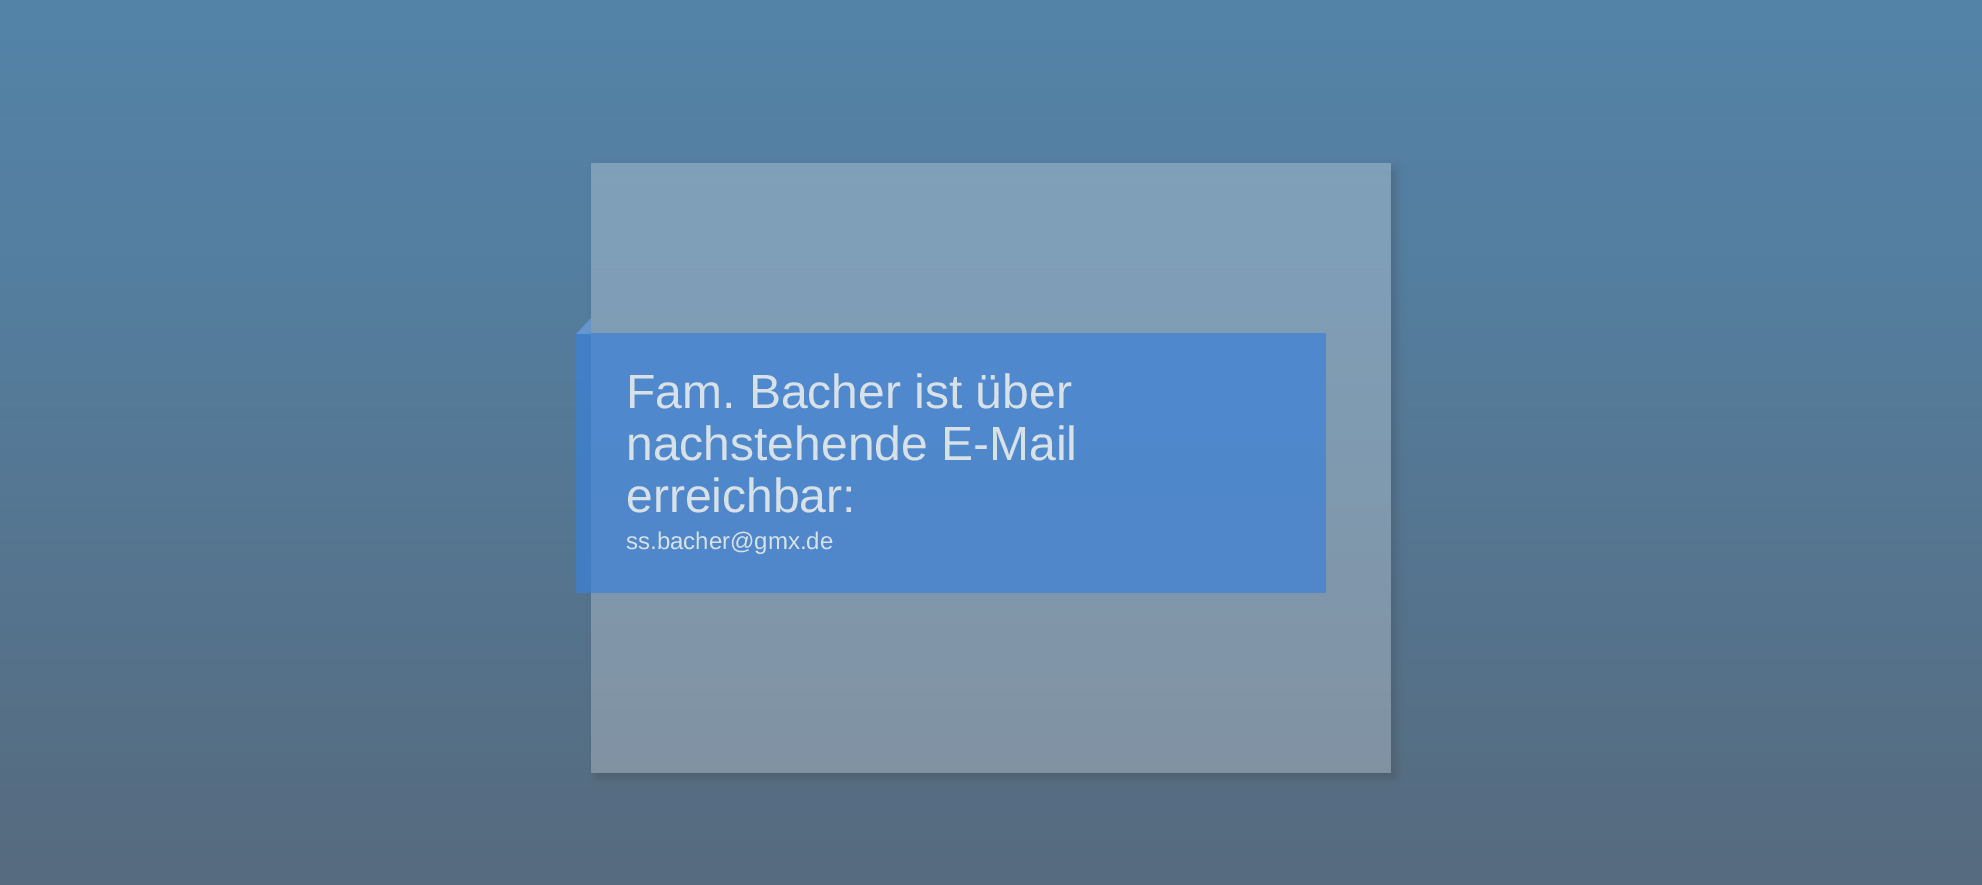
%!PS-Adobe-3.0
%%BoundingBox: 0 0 1982 885
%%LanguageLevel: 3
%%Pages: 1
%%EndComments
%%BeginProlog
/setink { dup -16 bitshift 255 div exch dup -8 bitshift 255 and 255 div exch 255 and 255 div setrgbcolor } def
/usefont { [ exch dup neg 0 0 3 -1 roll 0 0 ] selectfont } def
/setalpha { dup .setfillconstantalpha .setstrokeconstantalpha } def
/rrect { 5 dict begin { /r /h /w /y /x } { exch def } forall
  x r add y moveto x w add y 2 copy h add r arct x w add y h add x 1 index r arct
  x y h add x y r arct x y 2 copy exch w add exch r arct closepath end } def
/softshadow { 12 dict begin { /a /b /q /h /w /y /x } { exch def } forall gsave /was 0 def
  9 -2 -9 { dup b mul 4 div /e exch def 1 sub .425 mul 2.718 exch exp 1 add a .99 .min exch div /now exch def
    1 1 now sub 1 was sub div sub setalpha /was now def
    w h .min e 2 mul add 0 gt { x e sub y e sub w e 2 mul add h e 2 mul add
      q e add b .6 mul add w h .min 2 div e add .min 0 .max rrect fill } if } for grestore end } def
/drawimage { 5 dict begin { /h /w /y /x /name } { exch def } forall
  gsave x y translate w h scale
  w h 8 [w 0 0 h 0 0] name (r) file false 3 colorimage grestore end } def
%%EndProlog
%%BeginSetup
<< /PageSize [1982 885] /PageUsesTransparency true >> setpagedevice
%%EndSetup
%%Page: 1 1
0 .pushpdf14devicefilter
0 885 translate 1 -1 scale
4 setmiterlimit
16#FFFFFF setink
0 0 1982 885 rectfill
(img1.raw) 0 0 1982 885 drawimage
gsave
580 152 moveto 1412 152 lineto 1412 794 lineto 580 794 lineto closepath 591 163 moveto 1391 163 lineto 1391 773 lineto 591 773 lineto closepath eoclip newpath
16#323232 setink
596 168 800 610 0 5 0.25 softshadow
grestore
0.25 setalpha
591 163 800 610 rectfill
0.7 setalpha
16#3A80D7 setink
576 333 750 260 rectfill
1 setalpha
(img2.raw) 576 318 15 16 drawimage
/LiberationSans-Regular 48 usefont
16#D8E1E8 setink
[
    [(Fam. Bacher ist über) 626 408]
    [(nachstehende E-Mail) 626 460]
    [(erreichbar:) 626 512]
] { aload pop moveto show } forall
/LiberationSans-Regular 24 usefont
626 549 moveto (ss.bacher@gmx.de) show
.poppdf14devicefilter showpage
%%EOF
